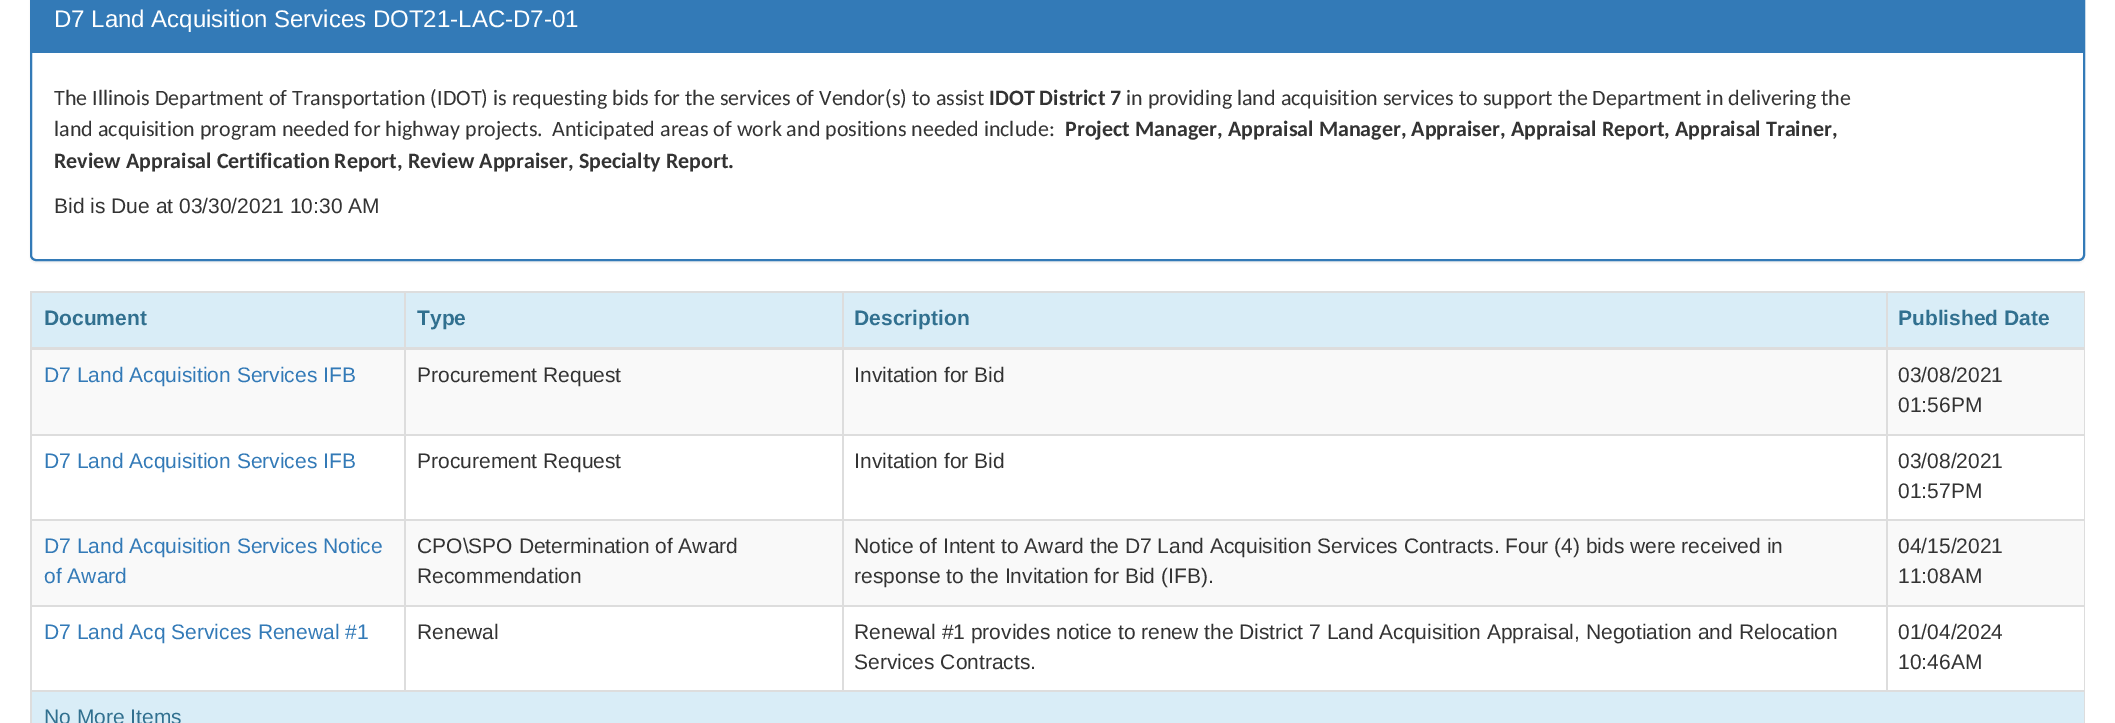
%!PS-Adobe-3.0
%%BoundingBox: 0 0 2115 723
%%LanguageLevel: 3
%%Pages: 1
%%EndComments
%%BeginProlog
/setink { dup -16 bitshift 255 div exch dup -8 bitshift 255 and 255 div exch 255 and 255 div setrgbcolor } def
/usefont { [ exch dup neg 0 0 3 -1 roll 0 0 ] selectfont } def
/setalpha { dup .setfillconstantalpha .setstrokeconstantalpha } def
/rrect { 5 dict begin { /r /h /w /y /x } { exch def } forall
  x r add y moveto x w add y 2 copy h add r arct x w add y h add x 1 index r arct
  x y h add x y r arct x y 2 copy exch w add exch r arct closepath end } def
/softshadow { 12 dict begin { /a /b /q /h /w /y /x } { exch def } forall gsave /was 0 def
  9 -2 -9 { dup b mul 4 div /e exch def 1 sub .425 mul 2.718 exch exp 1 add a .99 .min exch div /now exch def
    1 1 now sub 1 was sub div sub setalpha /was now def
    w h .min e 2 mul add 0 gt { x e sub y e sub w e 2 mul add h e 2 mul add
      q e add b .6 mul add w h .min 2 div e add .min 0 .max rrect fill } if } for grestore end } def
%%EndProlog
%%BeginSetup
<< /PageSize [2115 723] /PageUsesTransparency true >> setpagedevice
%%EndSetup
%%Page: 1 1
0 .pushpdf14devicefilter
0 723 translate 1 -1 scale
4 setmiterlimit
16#FFFFFF setink
0 0 2115 723 rectfill
16#000000 setink
30 -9 2055 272 6 1 0.05 softshadow
16#FFFFFF setink
31 -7 2053 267 5 rrect gsave fill grestore
16#337AB7 setink
2 setlinewidth
stroke
32 0 2051 53 rectfill
/LiberationSans-Regular 24 usefont
16#FFFFFF setink
54 27 moveto (D7 Land Acquisition Services DOT21-LAC-D7-01) show
/Carlito-Regular 22 usefont
16#333333 setink
54 105 moveto (The Illinois Department of Transportation \(IDOT\) is requesting bids for the services of Vendor\(s\) to assist) show
/Carlito-Bold 22 usefont
989 105 moveto (IDOT District 7) show
/Carlito-Regular 22 usefont
[
    [(in providing land acquisition services to support the Department in delivering the) 1126 105]
    [(land acquisition program needed for highway projects.) 54 136]
    [(Anticipated areas of work and positions needed include:) 552 136]
] { aload pop moveto show } forall
/Carlito-Bold 22 usefont
1065 136 moveto (Project Manager, Appraisal Manager, Appraiser, Appraisal Report, Appraisal Trainer,) show
54 168 moveto (Review Appraisal Certification Report, Review Appraiser, Specialty Report.) show
/LiberationSans-Regular 21 usefont
54 213 moveto (Bid is Due at 03/30/2021 10:30 AM) show
[
    [30 291 2055 2 16#DDDDDD]
    [2084 291 1 432 16#DDDDDD]
    [30 291 2 432 16#DDDDDD]
    [32 293 2052 54 16#D9EDF7]
] { aload pop setink rectfill } forall
/LiberationSans-Bold 21 usefont
16#31708F setink
[
    [(Document) 44 325]
    [(Type) 417 325]
    [(Description) 854 325]
] { aload pop moveto show } forall
[
    [32 350 2052 84 16#F9F9F9]
    [1886 434 199 2 16#DDDDDD]
    [1886 519 199 2 16#DDDDDD]
    [32 521 2052 84 16#F9F9F9]
    [1886 605 199 2 16#DDDDDD]
    [30 690 2055 2 16#DDDDDD]
    [1886 605 2 87 16#DDDDDD]
    [842 605 1045 2 16#DDDDDD]
    [1886 519 2 87 16#DDDDDD]
    [842 519 1045 2 16#DDDDDD]
    [1886 434 2 87 16#DDDDDD]
    [842 434 1045 2 16#DDDDDD]
    [842 605 2 87 16#DDDDDD]
    [404 605 439 2 16#DDDDDD]
    [842 519 2 87 16#DDDDDD]
    [404 519 439 2 16#DDDDDD]
    [842 434 2 87 16#DDDDDD]
    [404 434 439 2 16#DDDDDD]
    [404 605 2 87 16#DDDDDD]
    [30 605 375 2 16#DDDDDD]
    [404 519 2 87 16#DDDDDD]
    [30 519 375 2 16#DDDDDD]
    [404 434 2 87 16#DDDDDD]
    [30 434 375 2 16#DDDDDD]
    [404 291 2 144 16#DDDDDD]
    [842 291 2 144 16#DDDDDD]
    [1886 291 2 144 16#DDDDDD]
    [30 347 2055 3 16#DDDDDD]
] { aload pop setink rectfill } forall
16#31708F setink
1898 325 moveto (Published Date) show
/LiberationSans-Regular 21 usefont
16#337AB7 setink
44 382 moveto (D7 Land Acquisition Services IFB) show
16#333333 setink
[
    [(Procurement Request) 417 382]
    [(Invitation for Bid) 854 382]
    [(03/08/2021) 1898 382]
    [(01:56PM) 1898 412]
] { aload pop moveto show } forall
16#337AB7 setink
44 468 moveto (D7 Land Acquisition Services IFB) show
16#333333 setink
[
    [(Procurement Request) 417 468]
    [(Invitation for Bid) 854 468]
    [(03/08/2021) 1898 468]
    [(01:57PM) 1898 498]
] { aload pop moveto show } forall
16#337AB7 setink
44 553 moveto (D7 Land Acquisition Services Notice) show
44 583 moveto (of Award) show
16#333333 setink
[
    [(CPO\\SPO Determination of Award) 417 553]
    [(Recommendation) 417 583]
    [(Notice of Intent to Award the D7 Land Acquisition Services Contracts. Four \(4\) bids were received in) 854 553]
    [(response to the Invitation for Bid \(IFB\).) 854 583]
    [(04/15/2021) 1898 553]
    [(11:08AM) 1898 583]
] { aload pop moveto show } forall
16#337AB7 setink
44 639 moveto (D7 Land Acq Services Renewal #1) show
16#333333 setink
[
    [(Renewal) 417 639]
    [(Renewal #1 provides notice to renew the District 7 Land Acquisition Appraisal, Negotiation and Relocation) 854 639]
    [(Services Contracts.) 854 669]
    [(01/04/2024) 1898 639]
    [(10:46AM) 1898 669]
] { aload pop moveto show } forall
16#D9EDF7 setink
32 692 2052 31 rectfill
16#31708F setink
44 724 moveto (No More Items) show
.poppdf14devicefilter showpage
%%EOF
